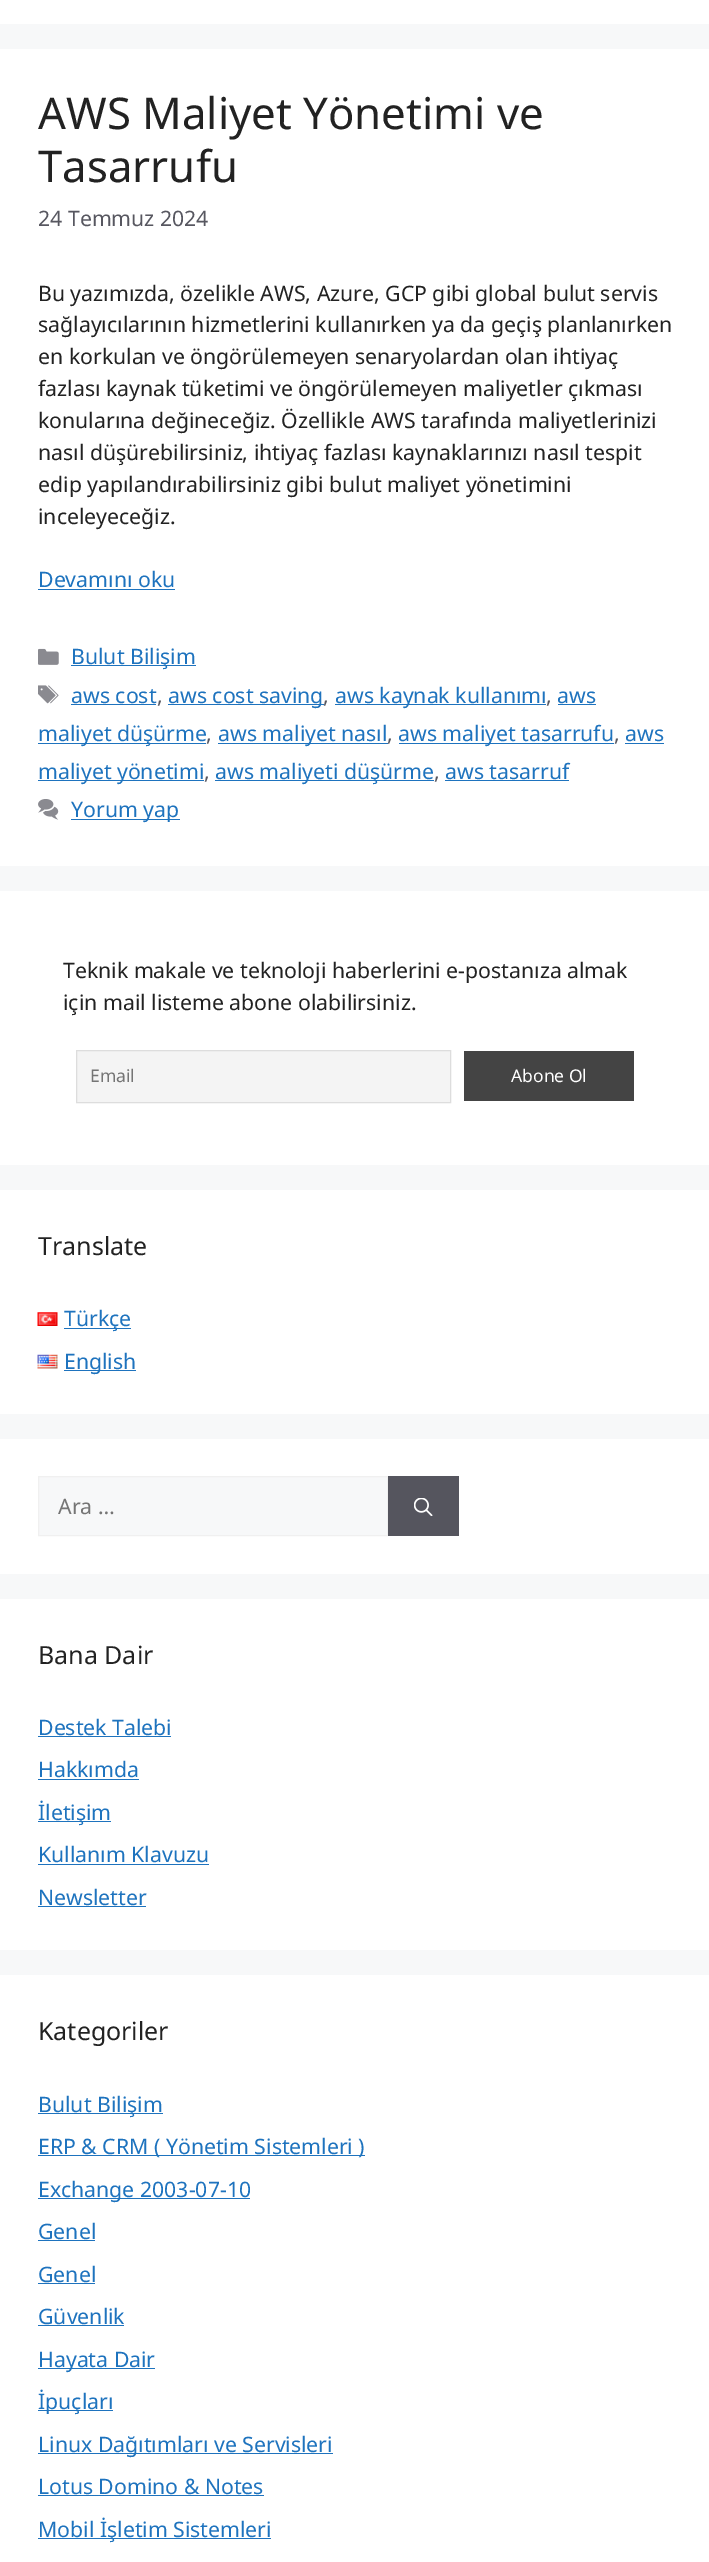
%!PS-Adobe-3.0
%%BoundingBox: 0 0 709 2562
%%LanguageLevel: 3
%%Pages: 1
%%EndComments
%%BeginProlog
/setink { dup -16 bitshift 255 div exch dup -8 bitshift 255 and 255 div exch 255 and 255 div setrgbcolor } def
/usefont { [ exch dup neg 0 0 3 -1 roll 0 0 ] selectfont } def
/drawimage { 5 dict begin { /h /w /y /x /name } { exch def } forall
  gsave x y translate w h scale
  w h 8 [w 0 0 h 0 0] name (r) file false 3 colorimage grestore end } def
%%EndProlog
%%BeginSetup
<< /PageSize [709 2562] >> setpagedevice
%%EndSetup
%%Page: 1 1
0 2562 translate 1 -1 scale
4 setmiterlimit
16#F7F8F9 setink
0 0 709 2562 rectfill
16#FFFFFF setink
0 0 709 24 rectfill
0 49 709 817 rectfill
/NotoSans-Regular 43.75 usefont
16#222222 setink
38 129 moveto (AWS Maliyet Yönetimi ve) show
38 182 moveto (Tasarrufu) show
/NotoSans-Regular 21.25 usefont
16#575760 setink
38 226 moveto (24 Temmuz 2024) show
16#222222 setink
[
    [(Bu yazımızda, özelikle AWS, Azure, GCP gibi global bulut servis) 38 301]
    [(sağlayıcılarının hizmetlerini kullanırken ya da geçiş planlanırken) 38 332]
    [(en korkulan ve öngörülemeyen senaryolardan olan ihtiyaç) 38 364]
    [(fazlası kaynak tüketimi ve öngörülemeyen maliyetler çıkması) 38 396]
    [(konularına değineceğiz. Özellikle AWS tarafında maliyetlerinizi) 38 428]
    [(nasıl düşürebilirsiniz, ihtiyaç fazlası kaynaklarınızı nasıl tespit) 38 460]
    [(edip yapılandırabilirsiniz gibi bulut maliyet yönetimini) 38 492]
    [(inceleyeceğiz.) 38 524]
] { aload pop moveto show } forall
16#1E73BE setink
38 587 moveto (Devamını oku) show
38 589 137 1 rectfill
(img1.raw) 38 648 21 17 drawimage
71 665 125 1 rectfill
71 664 moveto (Bulut Bilişim) show
(img2.raw) 38 685 21 19 drawimage
71 703 moveto (aws cost) show
71 704 85 1 rectfill
16#575760 setink
157 703 moveto (,) show
16#1E73BE setink
168 704 156 1 rectfill
168 703 moveto (aws cost saving) show
16#575760 setink
323 703 moveto (,) show
16#1E73BE setink
335 704 211 1 rectfill
335 703 moveto (aws kaynak kullanımı) show
16#575760 setink
546 703 moveto (,) show
16#1E73BE setink
557 703 moveto (aws) show
558 704 38 1 rectfill
38 743 168 1 rectfill
38 741 moveto (maliyet düşürme) show
16#575760 setink
206 741 moveto (,) show
16#1E73BE setink
218 743 170 1 rectfill
218 741 moveto (aws maliyet nasıl) show
16#575760 setink
387 741 moveto (,) show
16#1E73BE setink
399 743 215 1 rectfill
398 741 moveto (aws maliyet tasarrufu) show
16#575760 setink
614 741 moveto (,) show
16#1E73BE setink
625 741 moveto (aws) show
625 743 39 1 rectfill
38 780 166 1 rectfill
38 779 moveto (maliyet yönetimi) show
16#575760 setink
204 779 moveto (,) show
16#1E73BE setink
215 780 219 1 rectfill
215 779 moveto (aws maliyeti düşürme) show
16#575760 setink
434 779 moveto (,) show
16#1E73BE setink
445 779 moveto (aws tasarruf) show
445 780 124 1 rectfill
(img3.raw) 38 799 21 21 drawimage
71 819 109 1 rectfill
71 817 moveto (Yorum yap) show
16#FFFFFF setink
0 891 709 274 rectfill
16#222222 setink
63 978 moveto (Teknik makale ve teknoloji haberlerini e-postanıza almak) show
63 1010 moveto (için mail listeme abone olabilirsiniz.) show
16#F4F4F4 setink
76.5 1050.5 moveto 450.5 1050.5 lineto 450.5 1102.5 lineto 76.5 1102.5 lineto closepath gsave fill grestore
16#DDDDDD setink
stroke
/NotoSans-Regular 17.5 usefont
16#757575 setink
90 1082 moveto (Email) show
16#444444 setink
464 1051 170 50 rectfill
16#FFFFFF setink
511 1082 moveto (Abone Ol) show
0 1190 709 224 rectfill
/NotoSans-Regular 25 usefont
16#222222 setink
38 1255 moveto (Translate) show
(img4.raw) 37 1312 21 14 drawimage
16#1E73BE setink
64 1328 67 1 rectfill
/NotoSans-Regular 21.25 usefont
64 1326 moveto (Türkçe) show
(img5.raw) 37 1354 21 15 drawimage
64 1370 72 1 rectfill
64 1369 moveto (English) show
16#FFFFFF setink
0 1439 709 135 rectfill
16#F7F8F9 setink
38.5 1476.5 moveto 387.5 1476.5 lineto 387.5 1535.5 lineto 38.5 1535.5 lineto closepath gsave fill grestore
16#F0F0F0 setink
stroke
16#757575 setink
58 1514 moveto (Ara …) show
16#55555E setink
388 1476 71 60 rectfill
(img6.raw) 414 1498 19 18 drawimage
16#FFFFFF setink
0 1599 709 351 rectfill
/NotoSans-Regular 25 usefont
16#222222 setink
38 1664 moveto (Bana Dair) show
/NotoSans-Regular 21.25 usefont
16#1E73BE setink
38 1735 moveto (Destek Talebi) show
38 1736 133 1 rectfill
38 1777 moveto (Hakkımda) show
38 1779 101 1 rectfill
38 1821 73 1 rectfill
38 1820 moveto (İletişim) show
38 1862 moveto (Kullanım Klavuzu) show
38 1864 171 1 rectfill
38 1905 moveto (Newsletter) show
38 1906 108 1 rectfill
16#FFFFFF setink
0 1975 709 587 rectfill
/NotoSans-Regular 25 usefont
16#222222 setink
38 2040 moveto (Kategoriler) show
16#1E73BE setink
38 2113 125 1 rectfill
/NotoSans-Regular 21.25 usefont
38 2112 moveto (Bulut Bilişim) show
38 2155 327 1 rectfill
38 2154 moveto (ERP & CRM \( Yönetim Sistemleri \)) show
38 2198 212 1 rectfill
38 2197 moveto (Exchange 2003-07-10) show
38 2239 moveto (Genel) show
38 2240 57 1 rectfill
38 2282 moveto (Genel) show
38 2283 57 1 rectfill
38 2324 moveto (Güvenlik) show
38 2325 86 1 rectfill
38 2368 117 1 rectfill
38 2367 moveto (Hayata Dair) show
38 2410 75 1 rectfill
38 2409 moveto (İpuçları) show
38 2453 295 1 rectfill
38 2452 moveto (Linux Dağıtımları ve Servisleri) show
38 2494 moveto (Lotus Domino & Notes) show
38 2495 226 1 rectfill
38 2538 233 1 rectfill
38 2537 moveto (Mobil İşletim Sistemleri) show
showpage
%%EOF
